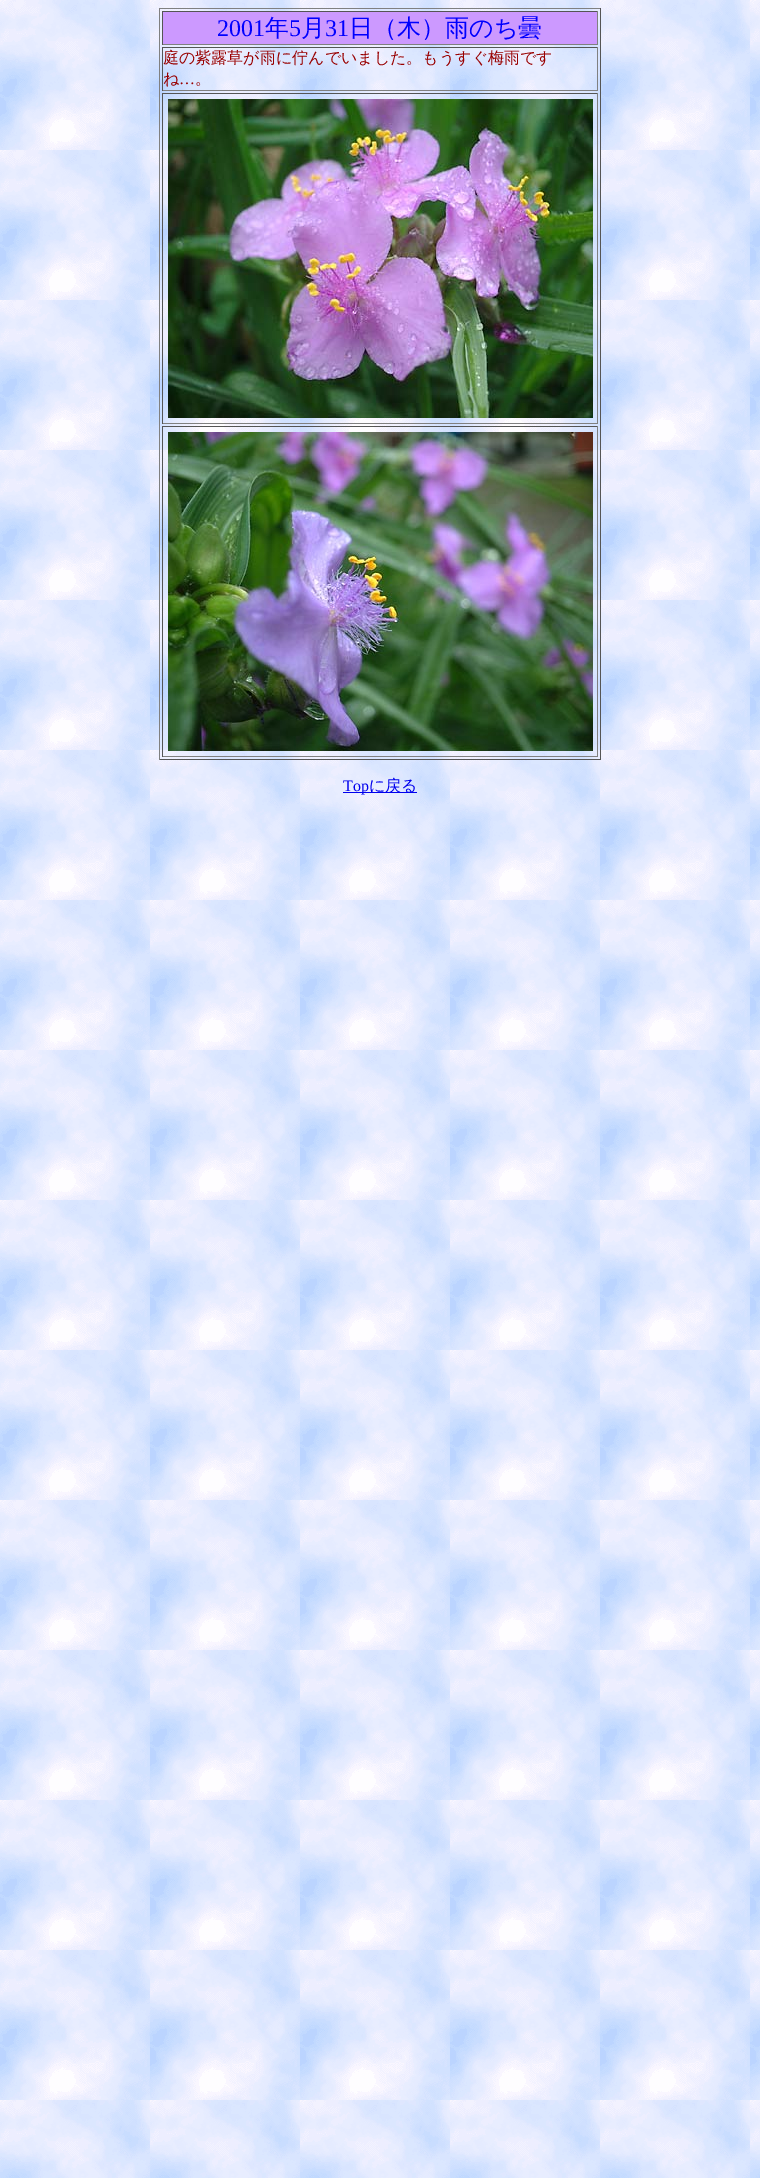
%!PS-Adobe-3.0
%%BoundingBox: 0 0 760 2178
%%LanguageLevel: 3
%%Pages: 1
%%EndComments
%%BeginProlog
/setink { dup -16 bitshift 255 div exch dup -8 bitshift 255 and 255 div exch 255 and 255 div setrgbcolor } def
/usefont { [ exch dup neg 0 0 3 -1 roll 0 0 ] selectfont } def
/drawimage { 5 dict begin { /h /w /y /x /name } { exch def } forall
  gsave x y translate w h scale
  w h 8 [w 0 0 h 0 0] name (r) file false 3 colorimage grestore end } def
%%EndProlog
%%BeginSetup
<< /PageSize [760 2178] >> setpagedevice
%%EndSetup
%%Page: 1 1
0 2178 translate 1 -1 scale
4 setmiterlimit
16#FFFFFF setink
0 0 760 2178 rectfill
(img1.raw) 0 0 760 2178 drawimage
[
    [159 8 442 1 16#808080]
    [600 8 1 752 16#555555]
    [159 759 442 1 16#555555]
    [159 8 1 752 16#808080]
    [163 12 434 32 16#CC99FF]
    [162 11 436 1 16#555555]
    [597 11 1 34 16#808080]
    [162 44 436 1 16#808080]
    [162 11 1 34 16#555555]
] { aload pop setink rectfill } forall
/LiberationSerif-Regular 24 usefont
16#0000FF setink
217 36 moveto (2001) show
/WenQuanYiZenHei-Medium 24 usefont
265 36 moveto (年) show
/LiberationSerif-Regular 24 usefont
289 36 moveto (5) show
/WenQuanYiZenHei-Medium 24 usefont
301 36 moveto (月) show
/LiberationSerif-Regular 24 usefont
325 36 moveto (31) show
/WenQuanYiZenHei-Medium 24 usefont
349 36 moveto (日（木）雨のち曇) show
[
    [162 47 436 1 16#555555]
    [597 47 1 44 16#808080]
    [162 90 436 1 16#808080]
    [162 47 1 44 16#555555]
] { aload pop setink rectfill } forall
/WenQuanYiZenHei-Medium 16 usefont
16#990000 setink
163 63 moveto (庭の紫露草が雨に佇んでいました。もうすぐ梅雨です) show
163 84 moveto (ね) show
/LiberationSerif-Regular 16 usefont
179 84 moveto (…) show
/WenQuanYiZenHei-Medium 16 usefont
195 84 moveto (。) show
[
    [162 93 436 1 16#555555]
    [597 93 1 331 16#808080]
    [162 423 436 1 16#808080]
    [162 93 1 331 16#555555]
] { aload pop setink rectfill } forall
(img2.raw) 168 99 425 319 drawimage
[
    [162 426 436 1 16#555555]
    [597 426 1 331 16#808080]
    [162 756 436 1 16#808080]
    [162 426 1 331 16#555555]
] { aload pop setink rectfill } forall
(img3.raw) 168 432 425 319 drawimage
16#0000EE setink
343 792 74 1 rectfill
/LiberationSerif-Regular 16 usefont
343 791 moveto (Top) show
/WenQuanYiZenHei-Medium 16 usefont
369 791 moveto (に戻る) show
showpage
%%EOF
